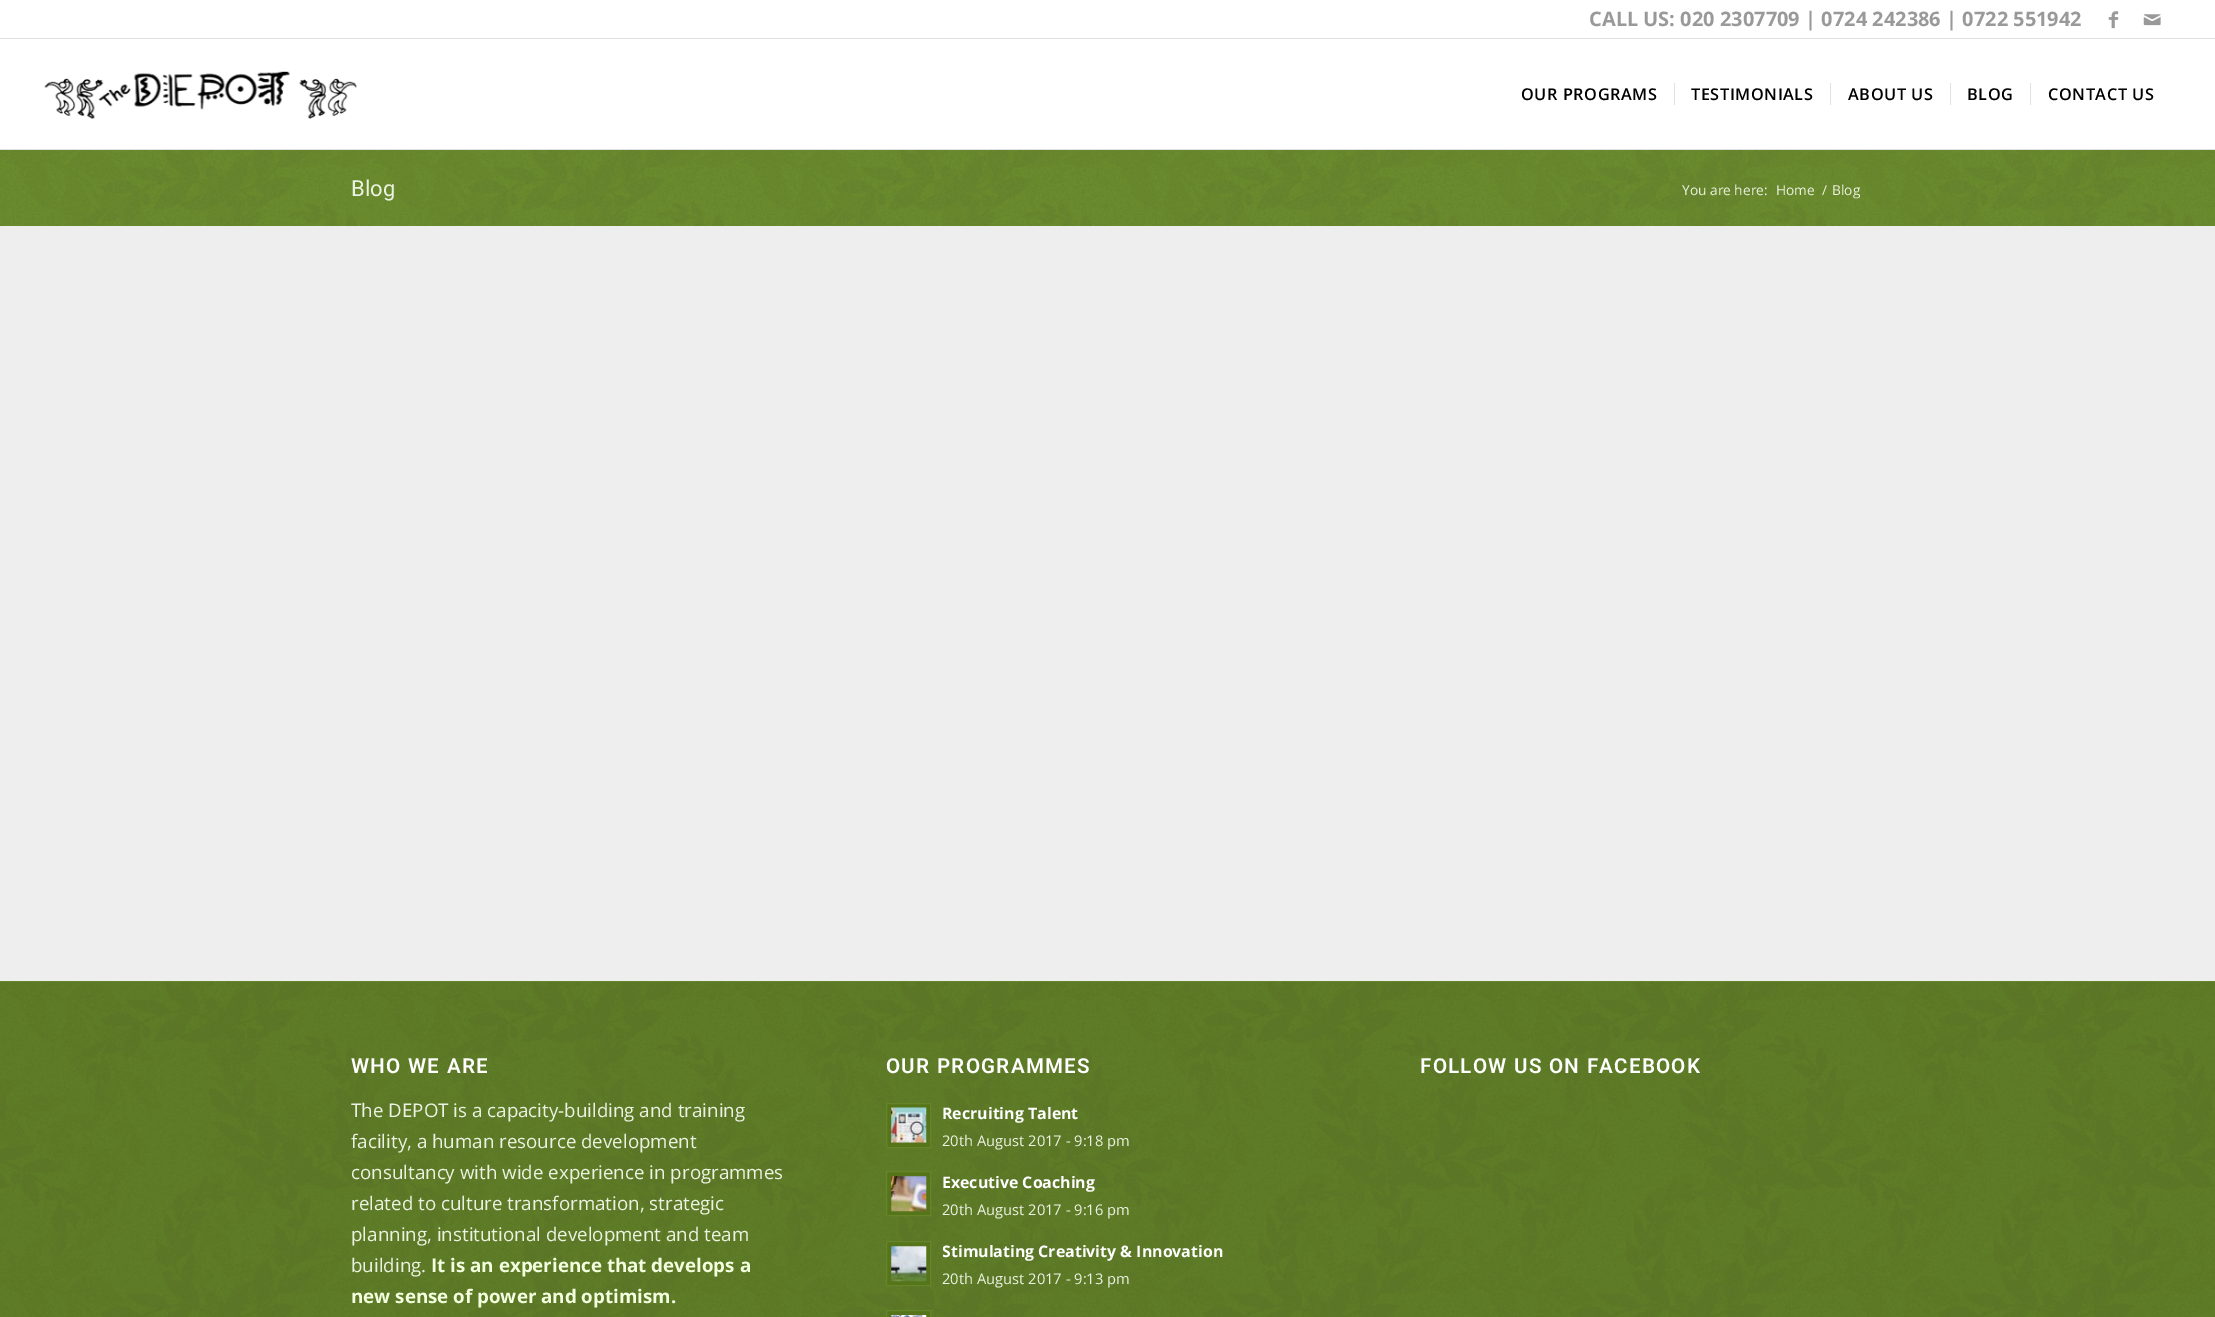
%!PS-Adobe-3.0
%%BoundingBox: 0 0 2215 1317
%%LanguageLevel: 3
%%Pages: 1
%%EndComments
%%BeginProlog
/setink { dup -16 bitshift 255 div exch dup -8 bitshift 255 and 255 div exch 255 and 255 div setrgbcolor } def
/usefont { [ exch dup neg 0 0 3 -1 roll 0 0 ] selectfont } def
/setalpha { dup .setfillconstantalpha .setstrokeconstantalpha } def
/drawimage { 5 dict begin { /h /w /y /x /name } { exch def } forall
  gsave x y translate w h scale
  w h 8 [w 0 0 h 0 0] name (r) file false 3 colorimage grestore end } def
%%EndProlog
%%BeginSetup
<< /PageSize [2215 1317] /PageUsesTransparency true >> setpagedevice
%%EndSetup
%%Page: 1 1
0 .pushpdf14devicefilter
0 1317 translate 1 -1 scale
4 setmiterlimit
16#FFFFFF setink
0 0 2215 1317 rectfill
16#E1E1E1 setink
0 38 2215 1 rectfill
/OpenSans-Bold 20 usefont
16#999999 setink
1589 26 moveto (CALL US: 020 2307709 | 0724 242386 | 0722 551942) show
(img1.raw) 2108 11 11 18 drawimage
(img2.raw) 2143 14 18 12 drawimage
16#719430 setink
0 150 2215 76 rectfill
(img4.raw) 0 148 2215 78 drawimage
16#E1E1E1 setink
0 149 2215 1 rectfill
(img3.raw) 44 71 313 48 drawimage
/OpenSans-SemiBold 16.25 usefont
16#000000 setink
1521 100 moveto 0.6 0 (OUR PROGRAMS) ashow
1691 100 moveto 0.6 0 (TESTIMONIALS) ashow
16#E1E1E1 setink
1674 83 1 22 rectfill
16#000000 setink
1848 100 moveto 0.6 0 (ABOUT US) ashow
16#E1E1E1 setink
1830 83 1 22 rectfill
16#000000 setink
1967 100 moveto 0.6 0 (BLOG) ashow
16#E1E1E1 setink
1950 83 1 22 rectfill
16#000000 setink
2048 100 moveto 0.6 0 (CONTACT US) ashow
16#E1E1E1 setink
2030 83 1 22 rectfill
0.95 setalpha
16#FFFFFF setink
0 148 2215 1 rectfill
/Roboto-Regular 22 usefont
1 setalpha
16#ECF2E1 setink
351 196 moveto (Blog) show
/OpenSans-Regular 13.75 usefont
[
    [(You are here:) 1682 195]
    [(Home) 1776 195]
    [(/) 1822 195]
    [(Blog) 1832 195]
] { aload pop moveto show } forall
16#EEEEEE setink
0 226 2215 755 rectfill
16#658529 setink
0 981 2215 336 rectfill
(img5.raw) 0 982 2215 335 drawimage
/Roboto-SemiBold 20.6 usefont
16#FFFFFF setink
351 1073 moveto 1.25 0 (WHO WE ARE) ashow
/OpenSans-Regular 18.75 usefont
16#ECF2E1 setink
[
    [(The DEPOT is a capacity-building and training) 351 1117]
    [(facility, a human resource development) 351 1148]
    [(consultancy with wide experience in programmes) 351 1179]
    [(related to culture transformation, strategic) 351 1210]
    [(planning, institutional development and team) 351 1241]
    [(building.) 351 1272]
] { aload pop moveto show } forall
/OpenSans-Bold 18.75 usefont
16#F3FFDE setink
431 1272 moveto (It is an experience that develops a) show
351 1303 moveto (new sense of power and optimism.) show
/Roboto-SemiBold 20.6 usefont
16#FFFFFF setink
886 1073 moveto 1.25 0 (OUR PROGRAMMES) ashow
16#56751B setink
886.5 1103.5 moveto 930.5 1103.5 lineto 930.5 1147.5 lineto 886.5 1147.5 lineto closepath gsave fill grestore
16#658529 setink
stroke
(img6.raw) 891 1107 36 36 drawimage
/OpenSans-Bold 15.9 usefont
16#FFFFFF setink
942 1119 moveto (Recruiting Talent) show
/OpenSans-Regular 14.7 usefont
16#ECF2E1 setink
942 1146 moveto (20th August 2017 - 9:18 pm) show
16#56751B setink
886.5 1171.5 moveto 930.5 1171.5 lineto 930.5 1215.5 lineto 886.5 1215.5 lineto closepath gsave fill grestore
16#658529 setink
stroke
(img7.raw) 891 1176 36 36 drawimage
/OpenSans-Bold 15.9 usefont
16#FFFFFF setink
942 1188 moveto (Executive Coaching) show
/OpenSans-Regular 14.7 usefont
16#ECF2E1 setink
942 1215 moveto (20th August 2017 - 9:16 pm) show
16#56751B setink
886.5 1241.5 moveto 930.5 1241.5 lineto 930.5 1285.5 lineto 886.5 1285.5 lineto closepath gsave fill grestore
16#658529 setink
stroke
(img8.raw) 891 1246 36 36 drawimage
gsave
943 1239 386 54 rectclip
/OpenSans-Bold 15.9 usefont
16#FFFFFF setink
942 1257 moveto (Stimulating Creativity & Innovation) show
grestore
16#ECF2E1 setink
942 1284 moveto (20th August 2017 - 9:13 pm) show
16#56751B setink
886.5 1310.5 moveto 930.5 1310.5 lineto 930.5 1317.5 lineto 886.5 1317.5 lineto closepath gsave fill grestore
16#658529 setink
stroke
(img9.raw) 891 1315 36 2 drawimage
/Roboto-SemiBold 20.6 usefont
16#FFFFFF setink
1420 1073 moveto 1.25 0 (FOLLOW US ON FACEBOOK) ashow
.poppdf14devicefilter showpage
%%EOF
